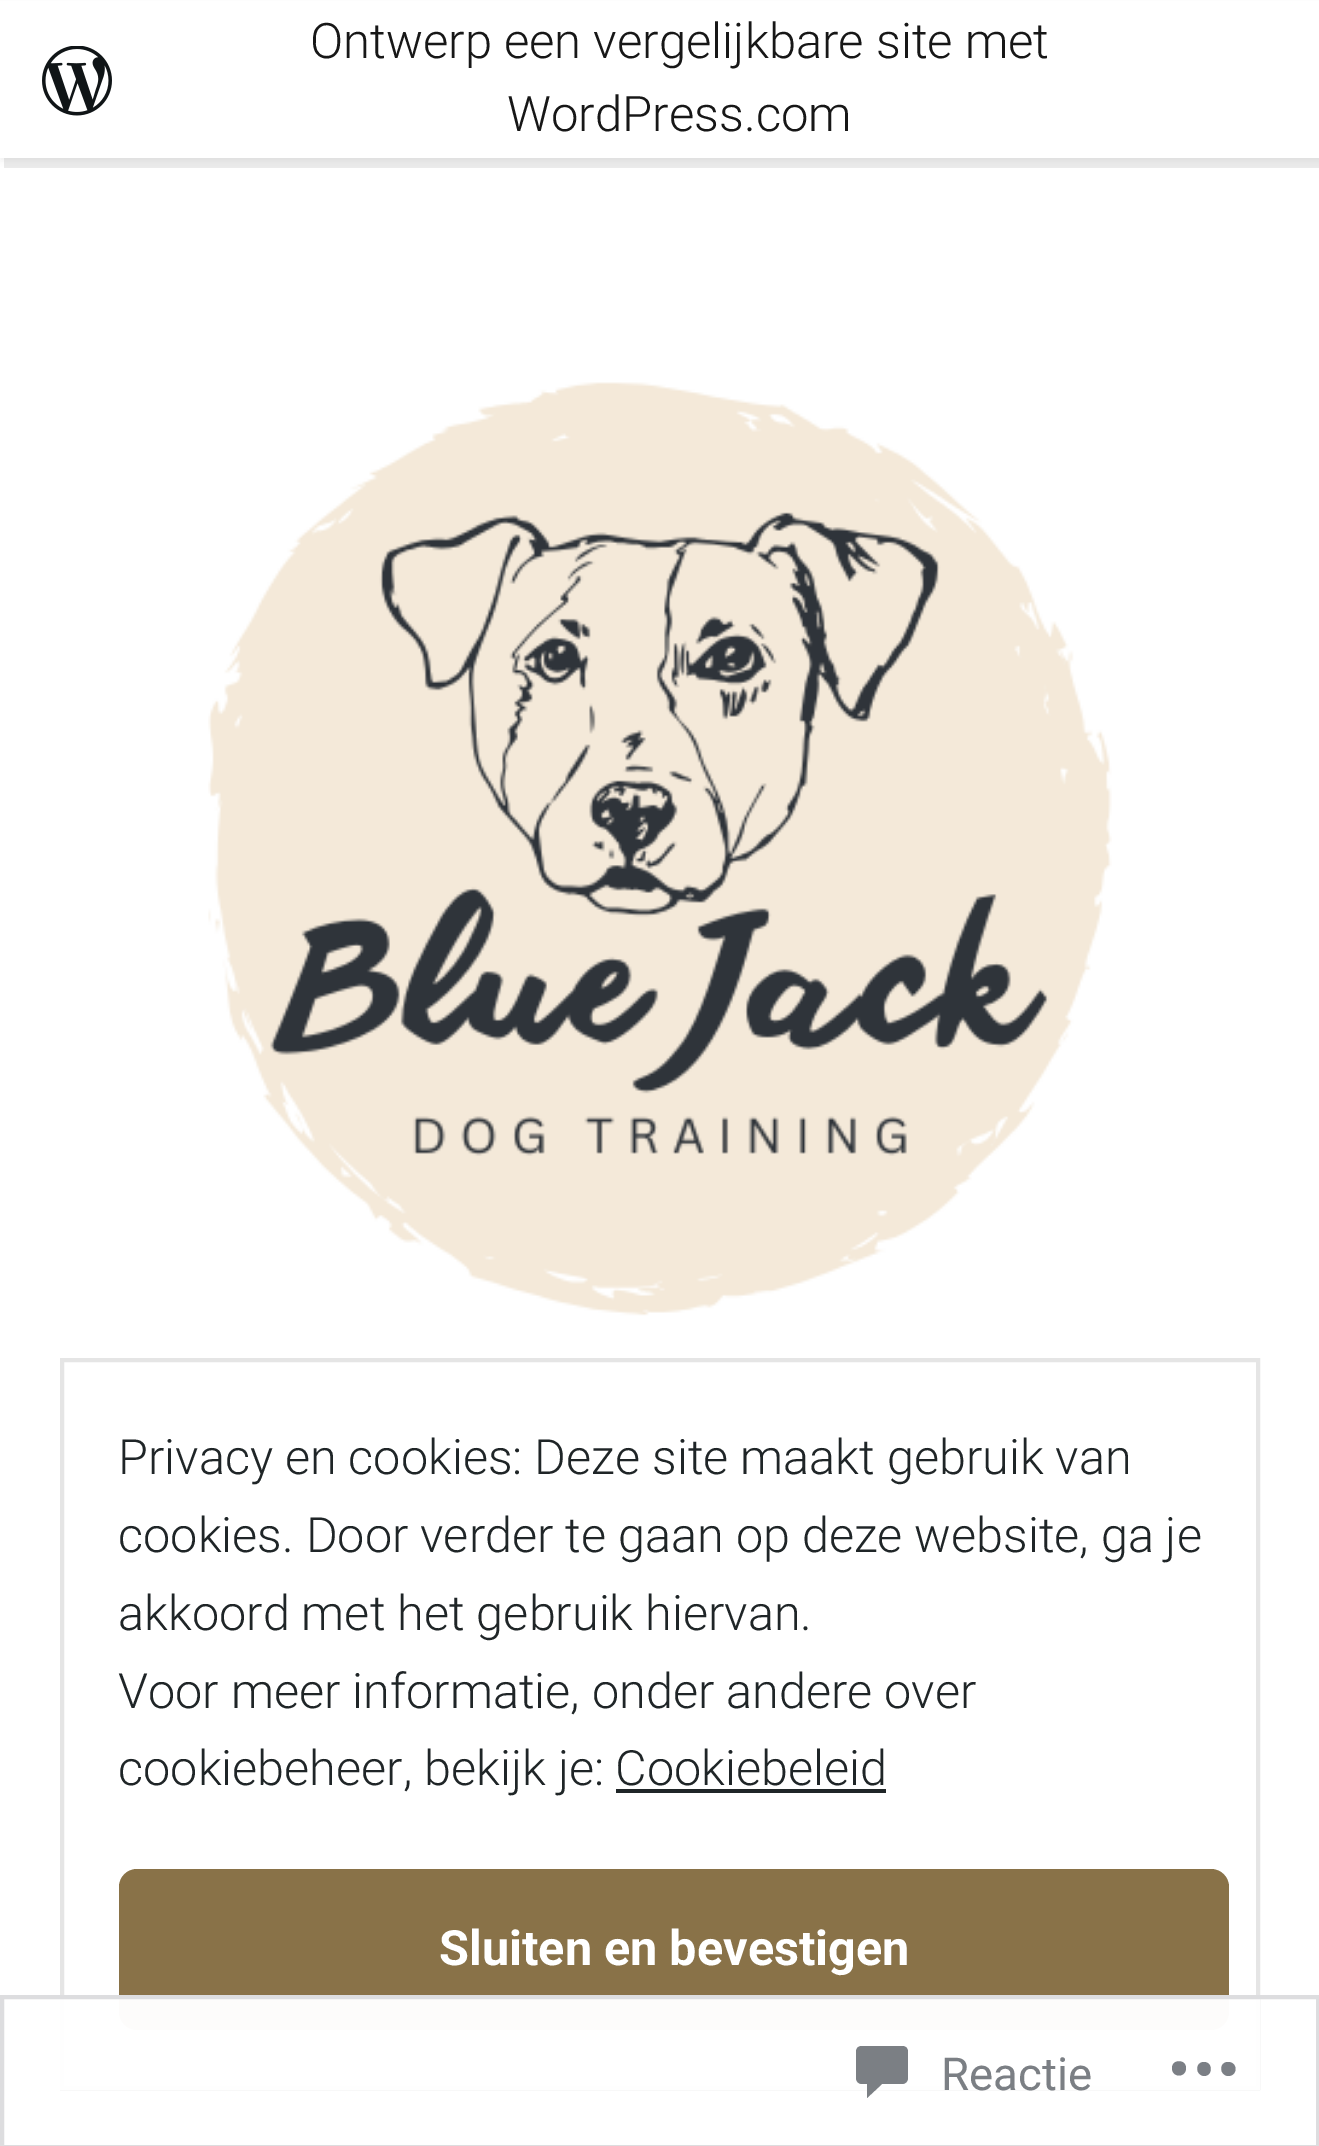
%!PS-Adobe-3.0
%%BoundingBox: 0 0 1319 2146
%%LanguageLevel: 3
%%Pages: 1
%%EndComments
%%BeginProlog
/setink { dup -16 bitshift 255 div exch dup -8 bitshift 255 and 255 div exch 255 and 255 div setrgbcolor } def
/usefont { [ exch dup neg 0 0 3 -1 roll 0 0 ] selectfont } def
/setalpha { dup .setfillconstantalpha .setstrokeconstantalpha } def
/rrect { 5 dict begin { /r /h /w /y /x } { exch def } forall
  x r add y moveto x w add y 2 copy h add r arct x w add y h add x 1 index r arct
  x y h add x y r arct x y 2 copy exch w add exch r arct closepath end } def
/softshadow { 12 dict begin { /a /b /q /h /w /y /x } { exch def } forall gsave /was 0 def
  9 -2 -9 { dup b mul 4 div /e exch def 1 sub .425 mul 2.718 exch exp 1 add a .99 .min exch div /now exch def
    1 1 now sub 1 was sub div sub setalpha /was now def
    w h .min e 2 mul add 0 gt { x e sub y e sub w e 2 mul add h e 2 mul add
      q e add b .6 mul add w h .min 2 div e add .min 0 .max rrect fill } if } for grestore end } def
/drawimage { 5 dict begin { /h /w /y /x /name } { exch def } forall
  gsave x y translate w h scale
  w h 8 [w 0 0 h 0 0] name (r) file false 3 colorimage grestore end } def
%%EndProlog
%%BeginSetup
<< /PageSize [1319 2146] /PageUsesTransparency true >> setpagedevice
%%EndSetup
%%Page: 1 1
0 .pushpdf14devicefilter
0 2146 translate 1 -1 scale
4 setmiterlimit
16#FFFFFF setink
0 0 1319 2146 rectfill
16#000000 setink
0 4 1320 157 0 3.5 0.05 softshadow
0.08 setalpha
4 158 moveto 4 168 lineto 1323 168 lineto 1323 11 lineto 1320 11 lineto 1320 158 lineto closepath fill
1 setalpha
16#FFFFFF setink
0 1 1319 157 rectfill
(img1.raw) 42 46 70 70 drawimage
/Roboto-Light 49 usefont
16#171717 setink
310 58 moveto (Ontwerp een vergelijkbare site met) show
507 131 moveto (WordPress.com) show
(img2.raw) 208 382 904 934 drawimage
16#E5E5E5 setink
4 setlinewidth
62 1360 1196 728 rectstroke
/Roboto-Light 48.6 usefont
16#1F2527 setink
[
    [(Privacy en cookies: Deze site maakt gebruik van) 118 1474]
    [(cookies. Door verder te gaan op deze website, ga je) 118 1552]
    [(akkoord met het gebruik hiervan.) 118 1630]
    [(Voor meer informatie, onder andere over) 118 1708]
    [(cookiebeheer, bekijk je:) 118 1785]
    [(Cookiebeleid) 615 1785]
] { aload pop moveto show } forall
616 1789 270 4 rectfill
16#897248 setink
119 1869 1110 161 18 rrect fill
/Roboto-Bold 48.6 usefont
16#FFFFFF setink
439 1965 moveto (Sluiten en bevestigen) show
0.98 setalpha
60 1995 1200 95 rectfill
16#DCDCDE setink
2 1997 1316 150 rectstroke
1 setalpha
16#7B7F84 setink
882 2084 moveto 867 2098 lineto 867 2084 lineto 862 2084 lineto 858 2084 856 2081 856 2078 curveto 856 2052 lineto 856 2048 858 2046 862 2046 curveto 902 2046 lineto 906 2046 908 2048 908 2052 curveto 908 2078 lineto 908 2081 906 2084 902 2084 curveto closepath fill
/Roboto-Regular 45.5 usefont
941 2090 moveto (Reactie) show
16#7B7F85 setink
1186 2068 moveto 1186 2078 1172 2078 1172 2068 curveto 1172 2059 1186 2059 1186 2068 curveto closepath 1228 2062 moveto 1219 2062 1219 2075 1228 2076 curveto 1238 2076 1238 2062 1228 2062 curveto closepath 1204 2062 moveto 1195 2062 1195 2075 1204 2076 curveto 1213 2076 1213 2062 1204 2062 curveto closepath fill
.poppdf14devicefilter showpage
%%EOF
